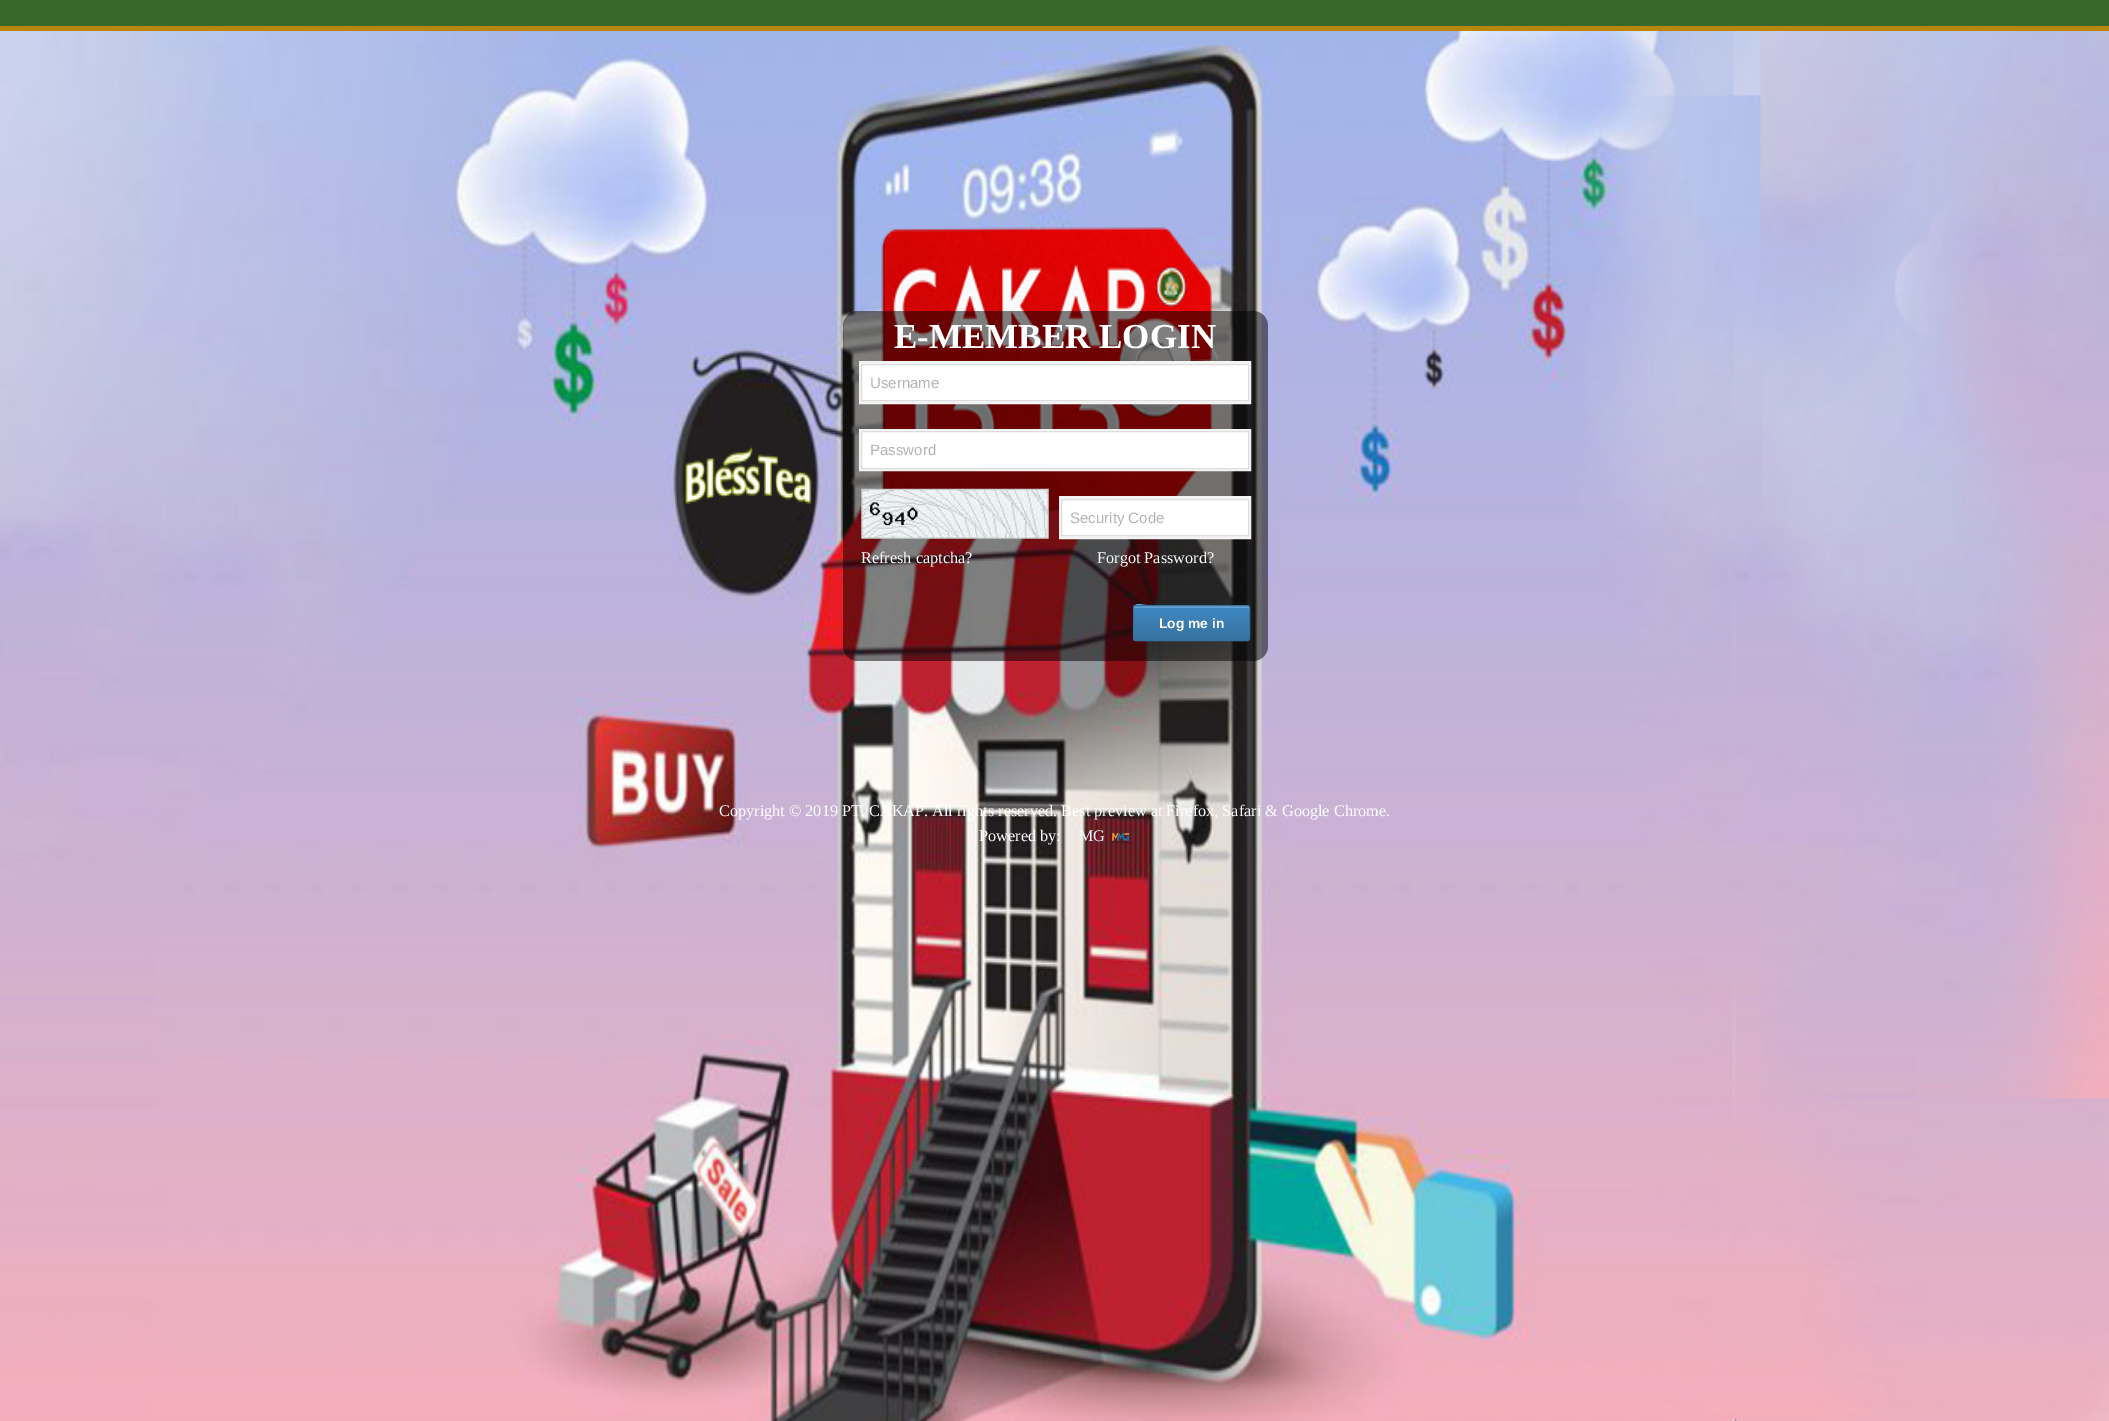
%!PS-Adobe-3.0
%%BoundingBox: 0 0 2109 1421
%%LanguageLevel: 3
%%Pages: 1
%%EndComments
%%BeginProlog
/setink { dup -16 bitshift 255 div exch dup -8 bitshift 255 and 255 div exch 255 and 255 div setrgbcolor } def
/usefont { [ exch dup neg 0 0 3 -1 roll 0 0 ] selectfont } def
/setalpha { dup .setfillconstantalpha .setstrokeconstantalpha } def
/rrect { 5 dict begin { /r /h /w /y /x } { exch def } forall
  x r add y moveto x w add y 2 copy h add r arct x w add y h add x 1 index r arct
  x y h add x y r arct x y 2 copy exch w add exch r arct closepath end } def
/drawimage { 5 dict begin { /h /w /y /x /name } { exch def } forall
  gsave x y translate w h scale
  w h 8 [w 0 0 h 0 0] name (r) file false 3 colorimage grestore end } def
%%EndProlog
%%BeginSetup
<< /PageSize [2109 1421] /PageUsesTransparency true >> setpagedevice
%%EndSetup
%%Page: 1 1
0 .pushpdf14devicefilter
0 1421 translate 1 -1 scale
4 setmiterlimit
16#FFFFFF setink
0 0 2109 1421 rectfill
(img1.raw) 0 31 2109 1390 drawimage
16#37692C setink
0 0 2109 26 rectfill
16#B8860B setink
0 26 2109 5 rectfill
0.5 setalpha
16#000000 setink
843 311 425 350 15 rrect fill
/LiberationSerif-Bold 35 usefont
1 setalpha
16#FFFFFF setink
894 348 moveto (E-MEMBER LOGIN) show
16#F4F4F4 setink
3 setlinewidth
860.5 362.5 389 40 rectstroke
16#FFFFFF setink
861.5 364.5 moveto 1248.5 364.5 lineto 1248.5 400.5 lineto 861.5 400.5 lineto closepath gsave fill grestore
16#DDDDDD setink
1 setlinewidth
stroke
/LiberationSans-Regular 15 usefont
16#B3B3B3 setink
870 388 moveto (Username) show
16#F4F4F4 setink
3 setlinewidth
860.5 430.5 389 39 rectstroke
16#FFFFFF setink
861.5 431.5 moveto 1248.5 431.5 lineto 1248.5 468.5 lineto 861.5 468.5 lineto closepath gsave fill grestore
16#DDDDDD setink
1 setlinewidth
stroke
16#B3B3B3 setink
870 455 moveto (Password) show
(img2.raw) 861 488 188 51 drawimage
16#F4F4F4 setink
3 setlinewidth
1060.5 497.5 189 40 rectstroke
16#FFFFFF setink
1061.5 499.5 moveto 1248.5 499.5 lineto 1248.5 535.5 lineto 1061.5 535.5 lineto closepath gsave fill grestore
16#DDDDDD setink
1 setlinewidth
stroke
16#B3B3B3 setink
1070 523 moveto (Security Code) show
/LiberationSerif-Regular 16.25 usefont
16#FFFFFF setink
861 563 moveto (Refresh captcha?) show
1097 563 moveto (Forgot Password?) show
gsave
1133 605 117 36 2.5 rrect clip newpath
gsave 1133 606 moveto 1250 606 lineto 1250 640 lineto 1133 640 lineto closepath clip newpath
<< /ShadingType 2 /ColorSpace /DeviceRGB /Coords [1191 606 1191 640] /Extend [true true] /Function << /FunctionType 2 /Domain [0 1] /C0 [0.251 0.537 0.769] /C1 [0.212 0.447 0.627] /N 1 >> >> shfill grestore
grestore
16#66A1D1 setink
1135 608 moveto 1248 608 lineto 1249 609 lineto 1249 608 1249 607 1248 606 curveto 1154 606 lineto 1144 606 1134 600 1134 609 curveto 1134 608 1134 608 1135 608 curveto closepath fill
16#3672A0 setink
1133.5 605.5 116 35 2 rrect stroke
/LiberationSans-Bold 13.75 usefont
16#FFFFFF setink
1159 628 moveto (Log me in) show
/LiberationSerif-Regular 16.25 usefont
719 816 moveto (Copyright © 2019 PT. CAKAP. All rights reserved. Best preview at Firefox, Safari & Google Chrome.) show
979 841 moveto (Powered by:) show
16#F0F8FF setink
1079 841 moveto (MG) show
(img3.raw) 1112 833 18 10 drawimage
.poppdf14devicefilter showpage
%%EOF
